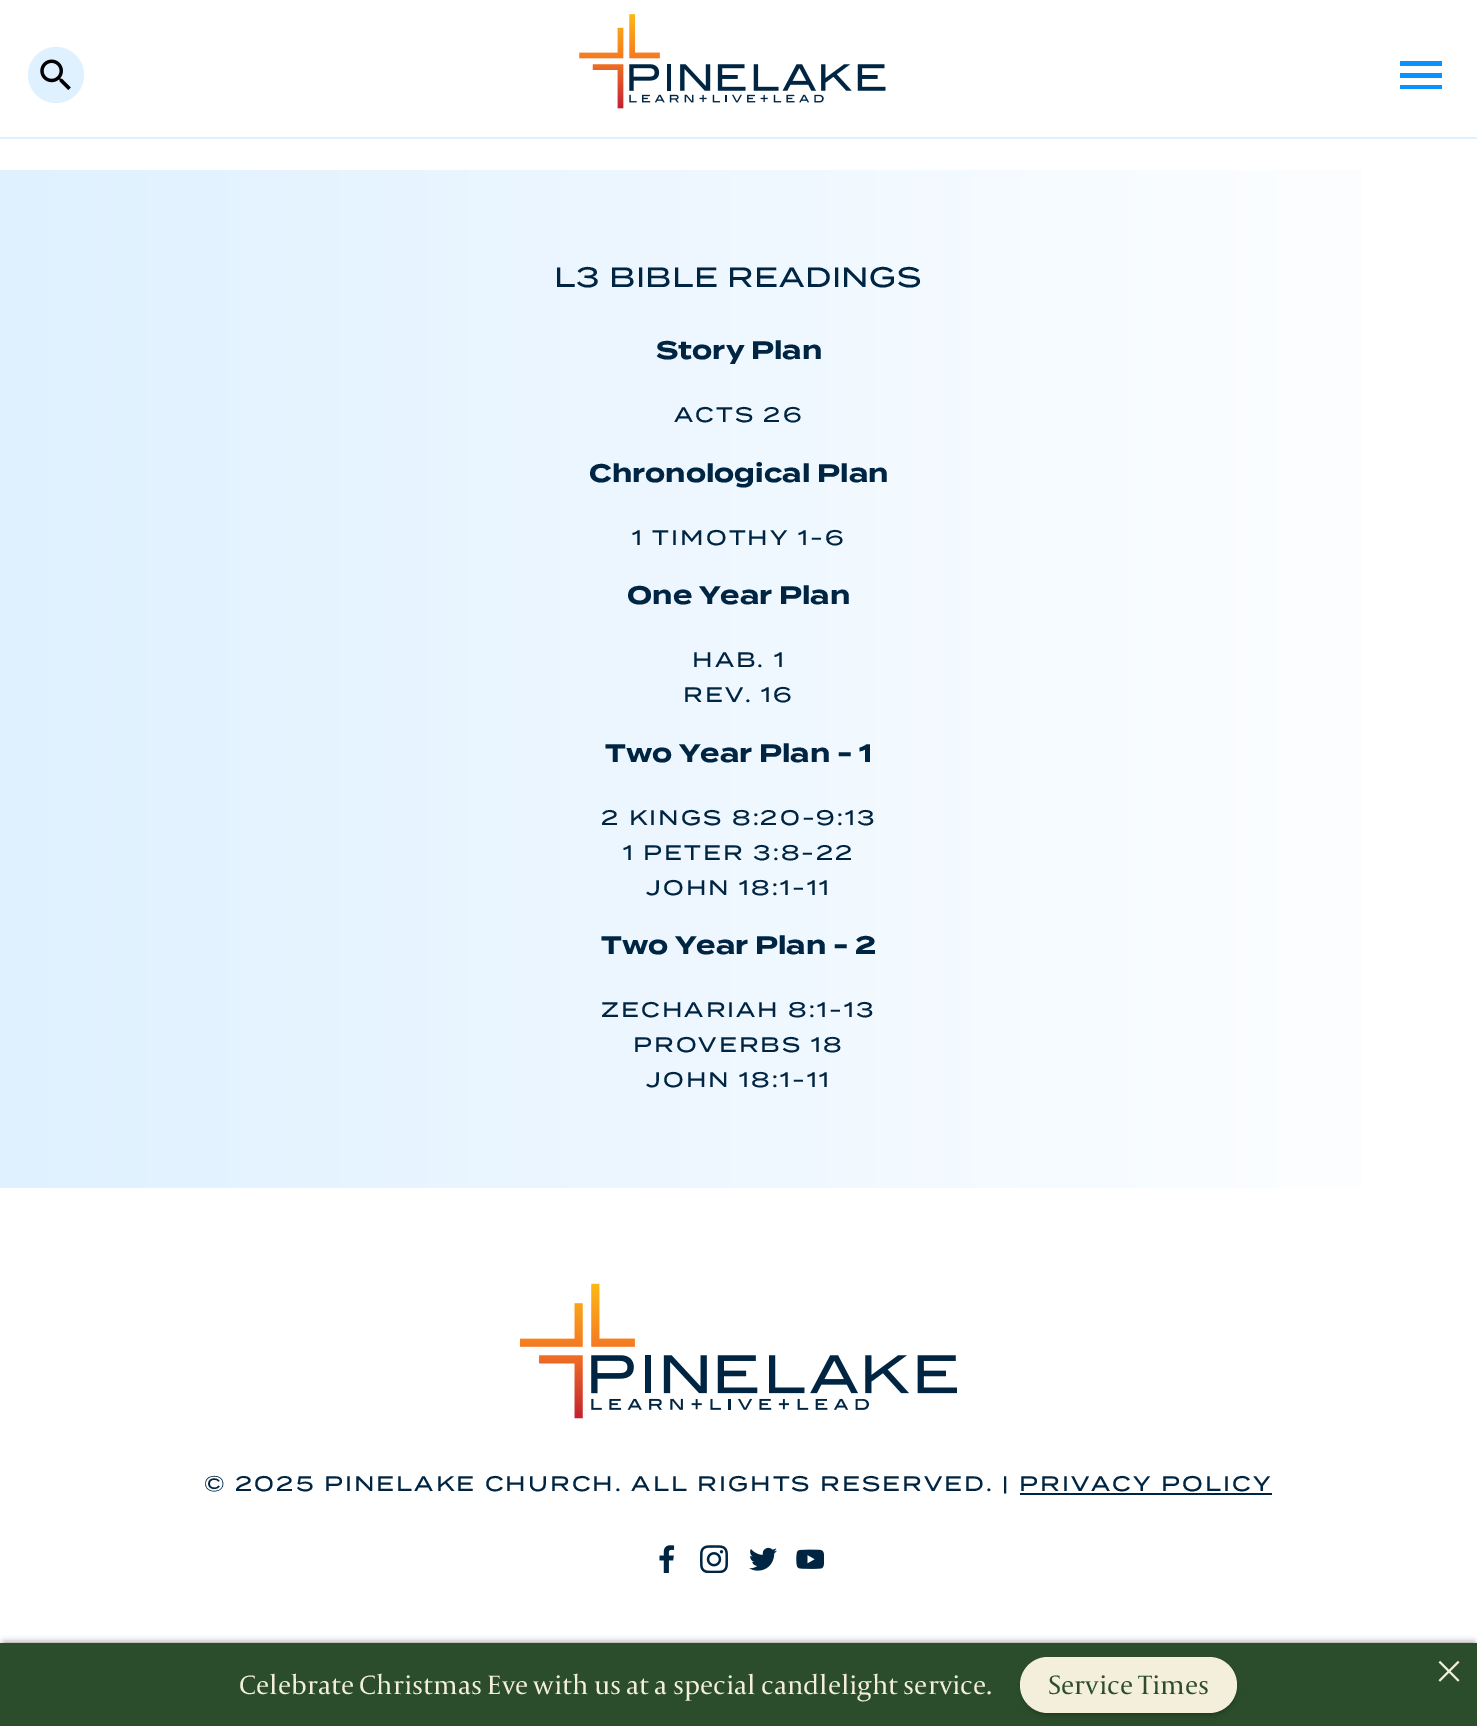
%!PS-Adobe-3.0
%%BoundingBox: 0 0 1477 1726
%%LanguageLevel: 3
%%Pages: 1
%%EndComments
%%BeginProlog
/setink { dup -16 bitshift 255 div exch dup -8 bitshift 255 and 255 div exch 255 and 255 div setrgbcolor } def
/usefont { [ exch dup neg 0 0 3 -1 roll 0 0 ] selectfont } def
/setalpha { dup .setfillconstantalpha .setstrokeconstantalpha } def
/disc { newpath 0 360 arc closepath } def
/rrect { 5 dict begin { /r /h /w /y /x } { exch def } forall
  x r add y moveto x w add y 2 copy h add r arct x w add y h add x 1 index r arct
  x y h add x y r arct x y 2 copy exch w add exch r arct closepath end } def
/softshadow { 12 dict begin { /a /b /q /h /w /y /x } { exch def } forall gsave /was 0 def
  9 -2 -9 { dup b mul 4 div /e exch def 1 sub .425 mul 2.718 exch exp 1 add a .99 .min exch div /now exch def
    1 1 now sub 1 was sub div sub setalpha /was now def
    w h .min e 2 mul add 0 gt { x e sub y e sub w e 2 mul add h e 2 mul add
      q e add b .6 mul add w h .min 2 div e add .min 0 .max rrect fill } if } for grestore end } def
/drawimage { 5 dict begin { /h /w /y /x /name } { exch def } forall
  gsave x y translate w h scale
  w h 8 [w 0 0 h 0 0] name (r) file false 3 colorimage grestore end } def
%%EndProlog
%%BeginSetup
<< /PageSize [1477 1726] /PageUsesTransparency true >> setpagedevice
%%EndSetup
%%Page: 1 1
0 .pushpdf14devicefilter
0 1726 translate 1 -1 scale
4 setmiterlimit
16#FFFFFF setink
0 0 1477 1726 rectfill
16#DFF1FF setink
0 137 1477 2 rectfill
56 75 28 disc fill
(img1.raw) 40 59 31 31 drawimage
(img2.raw) 579 14 307 95 drawimage
16#0A93FE setink
1400 89 moveto 1442 89 lineto 1442 85 lineto 1400 85 lineto closepath 1400 78 moveto 1442 78 lineto 1442 73 lineto 1400 73 lineto closepath 1400 61 moveto 1400 66 lineto 1442 66 lineto 1442 61 lineto closepath fill
gsave 0 170 moveto 1362 170 lineto 1362 1188 lineto 0 1188 lineto closepath clip newpath
<< /ShadingType 2 /ColorSpace /DeviceRGB /Coords [0 679 1477 679] /Extend [true true] /Function << /FunctionType 2 /Domain [0 1] /C0 [0.875 0.945 1] /C1 [1 1 1] /N 1 >> >> shfill grestore
/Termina-Medium 28 usefont
16#002542 setink
554 287 moveto 0.6 0 (L3 BIBLE READINGS) ashow
/Termina-Bold 25.25 usefont
656 359 moveto (Story Plan) show
/Termina-Medium 21 usefont
674 422 moveto 2.1 0 (ACTS 26) ashow
/Termina-Bold 25.25 usefont
589 482 moveto (Chronological Plan) show
/Termina-Medium 21 usefont
632 545 moveto 2.1 0 (1 TIMOTHY 1-6) ashow
/Termina-Bold 25.25 usefont
627 604 moveto (One Year Plan) show
/Termina-Medium 21 usefont
692 667 moveto 2.1 0 (HAB. 1) ashow
683 702 moveto 2.1 0 (REV. 16) ashow
/Termina-Bold 25.25 usefont
605 762 moveto (Two Year Plan - 1) show
/Termina-Medium 21 usefont
601 825 moveto 2.1 0 (2 KINGS 8:20-9:13) ashow
623 860 moveto 2.1 0 (1 PETER 3:8-22) ashow
646 895 moveto 2.1 0 (JOHN 18:1-11) ashow
/Termina-Bold 25.25 usefont
601 954 moveto (Two Year Plan - 2) show
/Termina-Medium 21 usefont
601 1017 moveto 2.1 0 (ZECHARIAH 8:1-13) ashow
633 1052 moveto 2.1 0 (PROVERBS 18) ashow
646 1087 moveto 2.1 0 (JOHN 18:1-11) ashow
(img3.raw) 520 1283 437 136 drawimage
204 1491 moveto 2.1 0 (© 2025 PINELAKE CHURCH. ALL RIGHTS RESERVED. | PRIVACY POLICY) ashow
1020 1493 252 2 rectfill
(img4.raw) 659 1545 16 28 drawimage
(img5.raw) 700 1545 28 28 drawimage
(img6.raw) 749 1547 28 24 drawimage
(img7.raw) 796 1549 28 20 drawimage
16#000000 setink
4 1643 1470 77 0 3.5 0.5 softshadow
16#2C4D2B setink
0 1643 1477 83 rectfill
/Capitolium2-Regular 28 usefont
16#F3EFDB setink
239 1694 moveto (Celebrate Christmas Eve with us at a special candlelight service.) show
16#000000 setink
1024 1664 210 49 24.5 3.5 0.5 softshadow
16#F3EFDB setink
1020 1657 217 56 28 rrect fill
16#2C4D2B setink
1048 1694 moveto (Service Times) show
(img8.raw) 1438 1660 22 22 drawimage
.poppdf14devicefilter showpage
%%EOF
